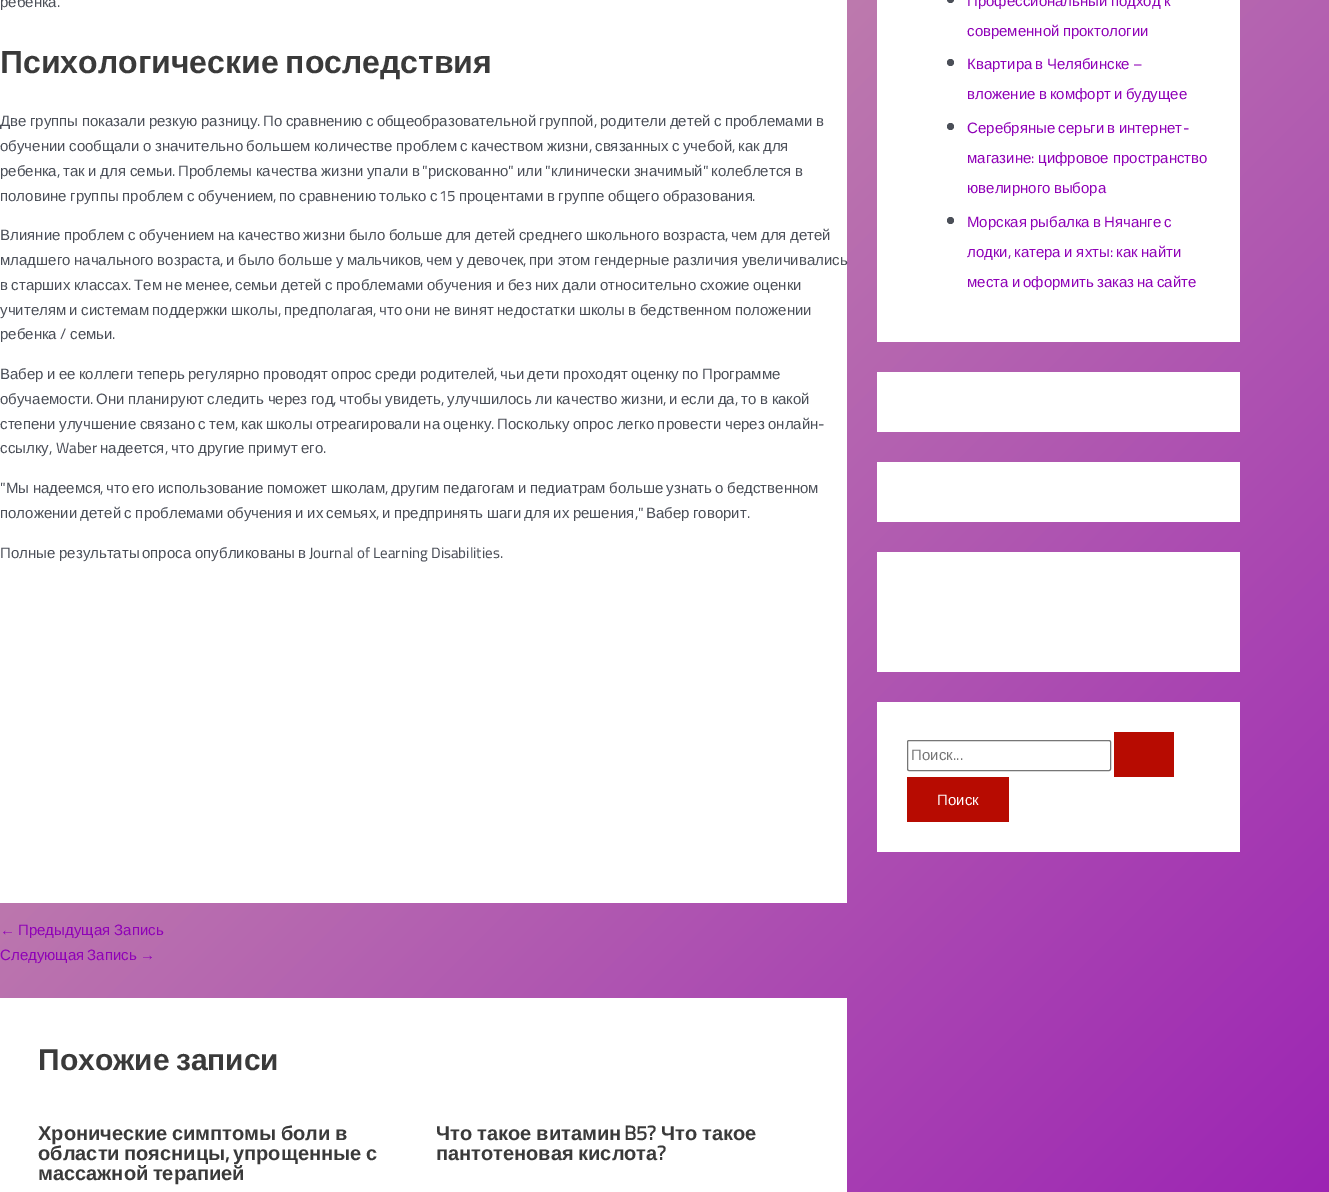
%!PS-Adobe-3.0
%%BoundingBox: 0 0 1329 1192
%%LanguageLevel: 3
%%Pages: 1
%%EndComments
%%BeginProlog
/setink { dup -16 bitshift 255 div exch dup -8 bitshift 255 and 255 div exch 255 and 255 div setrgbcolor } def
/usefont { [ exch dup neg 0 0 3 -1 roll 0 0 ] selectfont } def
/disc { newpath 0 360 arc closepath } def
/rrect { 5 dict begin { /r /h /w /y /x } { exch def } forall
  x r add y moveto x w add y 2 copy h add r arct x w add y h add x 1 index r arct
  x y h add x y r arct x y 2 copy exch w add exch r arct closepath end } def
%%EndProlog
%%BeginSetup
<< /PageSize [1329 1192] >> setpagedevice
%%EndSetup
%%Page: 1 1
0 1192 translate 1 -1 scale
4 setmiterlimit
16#FFFFFF setink
0 0 1329 1192 rectfill
gsave 0 0 moveto 1329 0 lineto 1329 1192 lineto 0 1192 lineto closepath clip newpath
<< /ShadingType 2 /ColorSpace /DeviceRGB /Coords [-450 -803 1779 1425] /Extend [true true] /Function << /FunctionType 2 /Domain [0 1] /C0 [0.902 0.902 0.651] /C1 [0.561 0.004 0.718] /N 1 >> >> shfill grestore
0 0 847 903 rectfill
/LiberationSans-Regular 15 usefont
16#4B4F58 setink
0 7 moveto (ребенка) show
/Cairo-Regular 15 usefont
57 7 moveto (.) show
/LiberationSans-Bold 32 usefont
16#3A3A3A setink
0 73 moveto -2 0 32 (Психологические последствия) widthshow
/LiberationSans-Regular 15 usefont
16#4B4F58 setink
0 126 moveto -0.75 0 32 (Две группы показали резкую разницу) widthshow
/Cairo-Regular 15 usefont
257 126 moveto (.) show
/LiberationSans-Regular 15 usefont
263 126 moveto -0.75 0 32 (По сравнению с общеобразовательной группой) widthshow
/Cairo-Regular 15 usefont
594 126 moveto (,) show
/LiberationSans-Regular 15 usefont
600 126 moveto -0.75 0 32 (родители детей с проблемами в) widthshow
0 151 moveto -0.75 0 32 (обучении сообщали о значительно большем количестве проблем с качеством жизни) widthshow
/Cairo-Regular 15 usefont
589 151 moveto (,) show
/LiberationSans-Regular 15 usefont
595 151 moveto -0.75 0 32 (связанных с учебой) widthshow
/Cairo-Regular 15 usefont
732 151 moveto (,) show
/LiberationSans-Regular 15 usefont
738 151 moveto -0.75 0 32 (как для) widthshow
0 176 moveto (ребенка) show
/Cairo-Regular 15 usefont
57 176 moveto (,) show
/LiberationSans-Regular 15 usefont
63 176 moveto -0.5 0 32 (так и для семьи) widthshow
/Cairo-Regular 15 usefont
172 176 moveto (.) show
/LiberationSans-Regular 15 usefont
178 176 moveto -0.5 0 32 (Проблемы качества жизни упали в) widthshow
/Cairo-Regular 15 usefont
422 176 moveto (") show
/LiberationSans-Regular 15 usefont
428 176 moveto (рискованно) show
/Cairo-Regular 15 usefont
508 176 moveto (") show
/LiberationSans-Regular 15 usefont
517 176 moveto (или) show
/Cairo-Regular 15 usefont
545 176 moveto (") show
/LiberationSans-Regular 15 usefont
551 176 moveto -0.5 0 32 (клинически значимый) widthshow
/Cairo-Regular 15 usefont
703 176 moveto (") show
/LiberationSans-Regular 15 usefont
711 176 moveto -0.5 0 32 (колеблется в) widthshow
0 201 moveto -0.5 0 32 (половине группы проблем с обучением) widthshow
/Cairo-Regular 15 usefont
273 201 moveto (,) show
/LiberationSans-Regular 15 usefont
279 201 moveto -0.5 0 32 (по сравнению только с) widthshow
/Cairo-Regular 15 usefont
439 201 moveto (15) show
/LiberationSans-Regular 15 usefont
459 201 moveto -0.5 0 32 (процентами в группе общего образования) widthshow
/Cairo-Regular 15 usefont
752 201 moveto (.) show
/LiberationSans-Regular 15 usefont
0 240 moveto -0.75 0 32 (Влияние проблем с обучением на качество жизни было больше для детей среднего школьного возраста) widthshow
/Cairo-Regular 15 usefont
725 240 moveto (,) show
/LiberationSans-Regular 15 usefont
731 240 moveto -0.75 0 32 (чем для детей) widthshow
0 265 moveto -0.5 0 32 (младшего начального возраста) widthshow
/Cairo-Regular 15 usefont
220 265 moveto (,) show
/LiberationSans-Regular 15 usefont
226 265 moveto -0.5 0 32 (и было больше у мальчиков) widthshow
/Cairo-Regular 15 usefont
420 265 moveto (,) show
/LiberationSans-Regular 15 usefont
426 265 moveto -0.5 0 32 (чем у девочек) widthshow
/Cairo-Regular 15 usefont
523 265 moveto (,) show
/LiberationSans-Regular 15 usefont
529 265 moveto -0.5 0 32 (при этом гендерные различия увеличивались) widthshow
0 290 moveto -0.75 0 32 (в старших классах) widthshow
/Cairo-Regular 15 usefont
128 290 moveto (.) show
/LiberationSans-Regular 15 usefont
134 290 moveto -0.75 0 32 (Тем не менее) widthshow
/Cairo-Regular 15 usefont
229 290 moveto (,) show
/LiberationSans-Regular 15 usefont
235 290 moveto -0.75 0 32 (семьи детей с проблемами обучения и без них дали относительно схожие оценки) widthshow
0 315 moveto -0.75 0 32 (учителям и системам поддержки школы) widthshow
/Cairo-Regular 15 usefont
278 315 moveto (,) show
/LiberationSans-Regular 15 usefont
284 315 moveto (предполагая) show
/Cairo-Regular 15 usefont
373 315 moveto (,) show
/LiberationSans-Regular 15 usefont
379 315 moveto -0.75 0 32 (что они не винят недостатки школы в бедственном положении) widthshow
0 339 moveto (ребенка) show
/Cairo-Regular 15 usefont
60 339 moveto (/) show
/LiberationSans-Regular 15 usefont
70 339 moveto (семьи) show
/Cairo-Regular 15 usefont
112 339 moveto (.) show
/LiberationSans-Regular 15 usefont
0 379 moveto -0.75 0 32 (Вабер и ее коллеги теперь регулярно проводят опрос среди родителей) widthshow
/Cairo-Regular 15 usefont
494 379 moveto (,) show
/LiberationSans-Regular 15 usefont
500 379 moveto -0.75 0 32 (чьи дети проходят оценку по Программе) widthshow
0 404 moveto (обучаемости) show
/Cairo-Regular 15 usefont
90 404 moveto (.) show
/LiberationSans-Regular 15 usefont
96 404 moveto -0.5 0 32 (Они планируют следить через год) widthshow
/Cairo-Regular 15 usefont
333 404 moveto (,) show
/LiberationSans-Regular 15 usefont
339 404 moveto -0.5 0 32 (чтобы увидеть) widthshow
/Cairo-Regular 15 usefont
441 404 moveto (,) show
/LiberationSans-Regular 15 usefont
447 404 moveto -0.5 0 32 (улучшилось ли качество жизни) widthshow
/Cairo-Regular 15 usefont
663 404 moveto (,) show
/LiberationSans-Regular 15 usefont
669 404 moveto -0.5 0 32 (и если да) widthshow
/Cairo-Regular 15 usefont
735 404 moveto (,) show
/LiberationSans-Regular 15 usefont
741 404 moveto -0.5 0 32 (то в какой) widthshow
0 429 moveto -0.75 0 32 (степени улучшение связано с тем) widthshow
241 429 moveto -0.75 0 32 (как школы отреагировали на оценку) widthshow
497 429 moveto -0.75 0 32 (Поскольку опрос легко провести через онлайн) widthshow
/Cairo-Regular 15 usefont
[
    [(-) 818 429]
    [(,) 235 429]
    [(.) 491 429]
] { aload pop moveto show } forall
/LiberationSans-Regular 15 usefont
0 453 moveto (ссылку) show
/Cairo-Regular 15 usefont
49 453 moveto (, Waber) show
/LiberationSans-Regular 15 usefont
100 453 moveto (надеется) show
/Cairo-Regular 15 usefont
165 453 moveto (,) show
/LiberationSans-Regular 15 usefont
[
    [(что) 171 453]
    [(другие) 198 453]
    [(примут) 248 453]
    [(его) 301 453]
] { aload pop moveto show } forall
/Cairo-Regular 15 usefont
323 453 moveto (.) show
0 493 moveto (") show
/LiberationSans-Regular 15 usefont
6 493 moveto -0.75 0 32 (Мы надеемся) widthshow
/Cairo-Regular 15 usefont
100 493 moveto (,) show
/LiberationSans-Regular 15 usefont
106 493 moveto -0.75 0 32 (что его использование поможет школам) widthshow
/Cairo-Regular 15 usefont
385 493 moveto (,) show
/LiberationSans-Regular 15 usefont
391 493 moveto -0.75 0 32 (другим педагогам и педиатрам больше узнать о бедственном) widthshow
0 518 moveto -0.75 0 32 (положении детей с проблемами обучения и их семьях) widthshow
/Cairo-Regular 15 usefont
376 518 moveto (,) show
/LiberationSans-Regular 15 usefont
382 518 moveto -0.75 0 32 (и предпринять шаги для их решения) widthshow
/Cairo-Regular 15 usefont
635 518 moveto (,") show
/LiberationSans-Regular 15 usefont
646 518 moveto -0.75 0 32 (Вабер говорит) widthshow
/Cairo-Regular 15 usefont
747 518 moveto (.) show
/LiberationSans-Regular 15 usefont
[
    [(Полные) 0 558]
    [(результаты) 59 558]
    [(опроса) 142 558]
    [(опубликованы) 195 558]
    [(в) 298 558]
] { aload pop moveto show } forall
/Cairo-Regular 15 usefont
309 558 moveto (Journal of Learning Disabilities.) show
/LiberationSans-Regular 15 usefont
16#8F01B7 setink
0 935 moveto (←) show
18 935 moveto (Предыдущая Запись) show
0 960 moveto -1 0 32 (Следующая Запись) widthshow
140 960 moveto (→) show
16#FFFFFF setink
0 998 847 194 rectfill
/LiberationSans-Bold 30 usefont
16#3A3A3A setink
38 1070 moveto -2 0 32 (Похожие записи) widthshow
/LiberationSans-Bold 20 usefont
38 1140 moveto -1 0 32 (Хронические симптомы боли в) widthshow
38 1160 moveto -1 0 32 (области поясницы) widthshow
/Cairo-Bold 20 usefont
225 1160 moveto (,) show
/LiberationSans-Bold 20 usefont
233 1160 moveto -1 0 32 (упрощенные с) widthshow
38 1180 moveto -1 0 32 (массажной терапией) widthshow
436 1140 moveto -0.5 0 32 (Что такое витамин) widthshow
/Cairo-Bold 20 usefont
624 1140 moveto (B5?) show
/LiberationSans-Bold 20 usefont
661 1140 moveto -0.5 0 32 (Что такое) widthshow
436 1160 moveto -1 0 32 (пантотеновая кислота) widthshow
/Cairo-Bold 20 usefont
657 1160 moveto (?) show
16#FFFFFF setink
877 0 363 342 rectfill
16#4B4F58 setink
950.5 -0.5 3.5 disc fill
/LiberationSans-Regular 15 usefont
16#8F01B7 setink
967 6 moveto -1 0 32 (Профессиональный подход к) widthshow
967 36 moveto -1 0 32 (современной проктологии) widthshow
16#4B4F58 setink
950.5 62.5 3.5 disc fill
16#8F01B7 setink
967 69 moveto -1 0 32 (Квартира в Челябинске) widthshow
/Cairo-Regular 15 usefont
1133 69 moveto (–) show
/LiberationSans-Regular 15 usefont
967 99 moveto -1 0 32 (вложение в комфорт и будущее) widthshow
16#4B4F58 setink
950.5 126.5 3.5 disc fill
16#8F01B7 setink
967 133 moveto -1 0 32 (Серебряные серьги в интернет) widthshow
/Cairo-Regular 15 usefont
1183 133 moveto (-) show
/LiberationSans-Regular 15 usefont
967 163 moveto (магазине) show
/Cairo-Regular 15 usefont
1031 163 moveto (:) show
/LiberationSans-Regular 15 usefont
1038 163 moveto (цифровое пространство) show
967 193 moveto -1 0 32 (ювелирного выбора) widthshow
16#4B4F58 setink
950.5 220.5 3.5 disc fill
16#8F01B7 setink
967 227 moveto -1 0 32 (Морская рыбалка в Нячанге с) widthshow
967 257 moveto (лодки) show
/Cairo-Regular 15 usefont
1008 257 moveto (,) show
/LiberationSans-Regular 15 usefont
1014 257 moveto -0.5 0 32 (катера и яхты) widthshow
/Cairo-Regular 15 usefont
1110 257 moveto (:) show
/LiberationSans-Regular 15 usefont
1116 257 moveto -0.5 0 32 (как найти) widthshow
967 287 moveto -1 0 32 (места и оформить заказ на сайте) widthshow
[
    [877 372 363 60 16#FFFFFF]
    [877 462 363 60 16#FFFFFF]
    [877 552 363 120 16#FFFFFF]
    [877 702 363 150 16#FFFFFF]
] { aload pop setink rectfill } forall
16#767676 setink
907.5 740.5 203 30 1.5 rrect stroke
16#757575 setink
911 760 moveto (Поиск) show
/Cairo-Regular 15 usefont
953 760 moveto (...) show
16#B70B01 setink
1114 732 60 45 rectfill
907 777 102 45 rectfill
/LiberationSans-Regular 15 usefont
16#FFFFFF setink
937 805 moveto (Поиск) show
showpage
%%EOF
